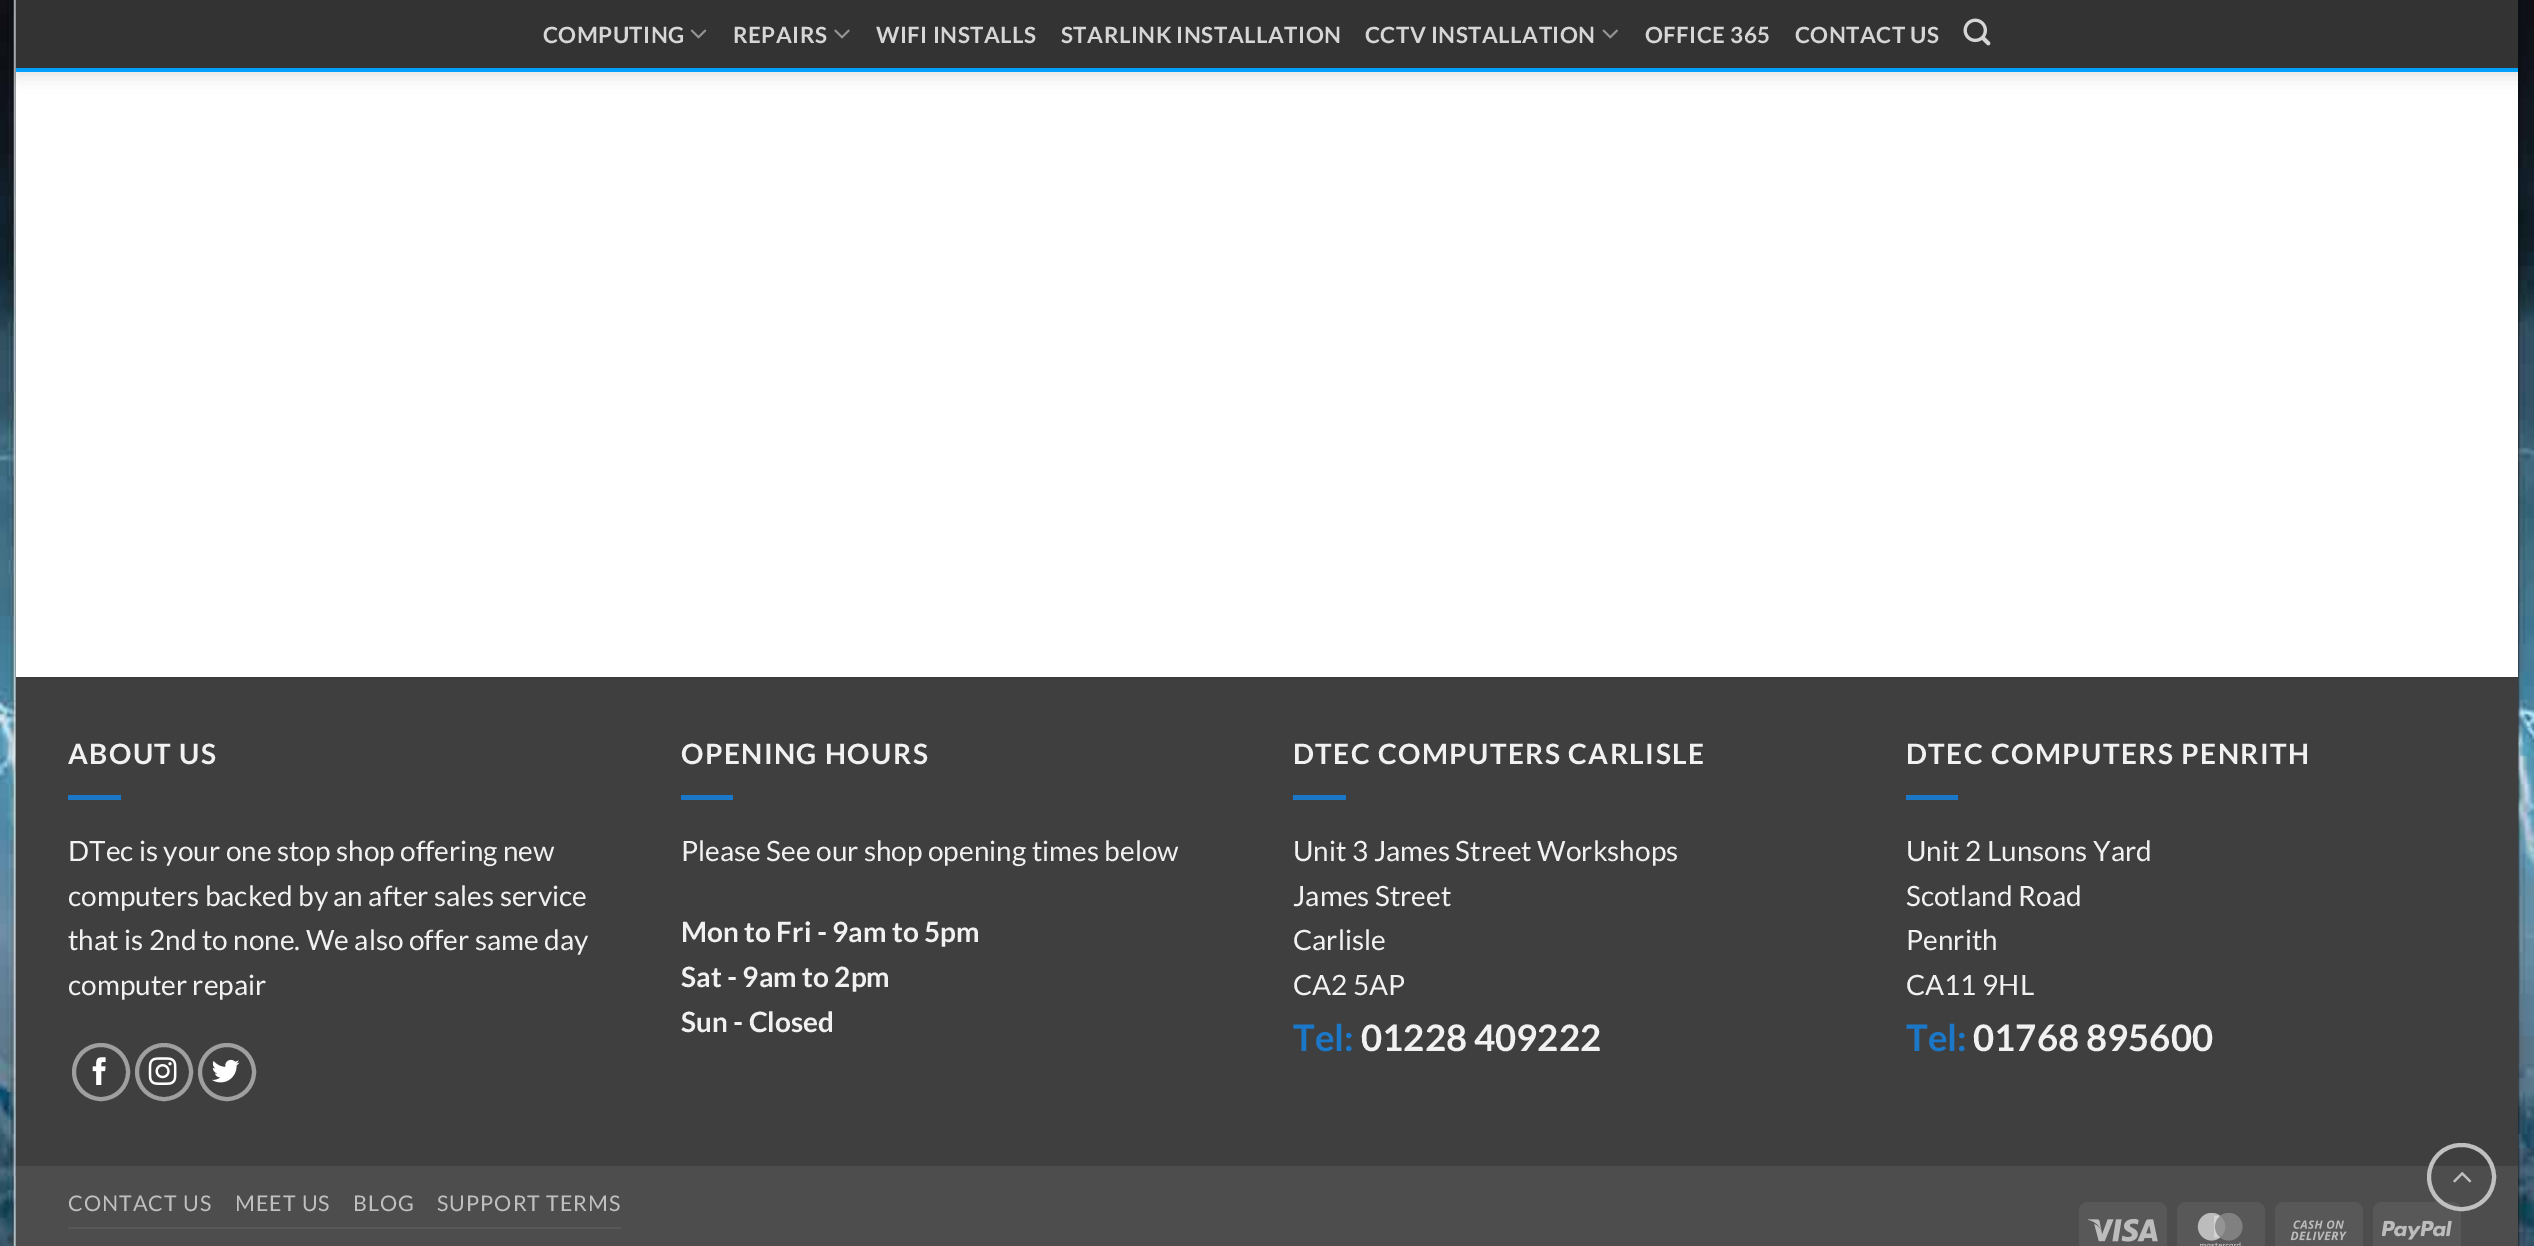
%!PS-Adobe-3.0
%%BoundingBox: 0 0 2534 1246
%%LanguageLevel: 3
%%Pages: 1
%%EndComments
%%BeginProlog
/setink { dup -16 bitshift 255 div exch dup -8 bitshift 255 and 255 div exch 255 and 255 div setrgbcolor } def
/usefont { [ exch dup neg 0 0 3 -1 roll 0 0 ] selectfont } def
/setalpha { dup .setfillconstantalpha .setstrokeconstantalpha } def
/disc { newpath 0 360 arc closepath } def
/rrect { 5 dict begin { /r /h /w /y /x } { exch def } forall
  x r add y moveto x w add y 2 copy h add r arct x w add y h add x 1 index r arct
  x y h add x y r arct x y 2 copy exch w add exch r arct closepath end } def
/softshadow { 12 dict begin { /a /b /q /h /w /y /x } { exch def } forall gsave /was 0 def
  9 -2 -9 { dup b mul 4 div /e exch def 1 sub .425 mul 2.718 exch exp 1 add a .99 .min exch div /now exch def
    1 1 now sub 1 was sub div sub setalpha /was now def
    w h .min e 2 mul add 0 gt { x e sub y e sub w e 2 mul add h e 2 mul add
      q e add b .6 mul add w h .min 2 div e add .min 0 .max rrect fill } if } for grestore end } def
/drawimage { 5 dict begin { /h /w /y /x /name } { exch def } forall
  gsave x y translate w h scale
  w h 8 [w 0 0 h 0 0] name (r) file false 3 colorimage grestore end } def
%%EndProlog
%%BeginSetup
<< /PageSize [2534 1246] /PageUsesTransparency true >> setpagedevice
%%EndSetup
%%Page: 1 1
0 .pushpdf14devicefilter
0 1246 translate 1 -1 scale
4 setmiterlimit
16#FFFFFF setink
0 0 2534 1246 rectfill
(img1.raw) 0 0 2534 1246 drawimage
16#000000 setink
16 -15 2502 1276 0 5 0.23 softshadow
16#FFFFFF setink
16 72 2502 605 rectfill
16#000000 setink
18 2 2502 72 0 9 0.15 softshadow
16#333333 setink
16 0 2502 68 rectfill
16#01A0FD setink
16 68 2502 4 rectfill
/Lato-Bold 22.4 usefont
16#D6D6D6 setink
543 43 moveto 0.45 0 (COMPUTING) ashow
(img2.raw) 690 29 17 10 drawimage
733 43 moveto 0.45 0 (REPAIRS) ashow
(img3.raw) 834 29 16 10 drawimage
876 43 moveto 0.45 0 (WIFI INSTALLS) ashow
1061 43 moveto 0.45 0 (STARLINK INSTALLATION) ashow
1365 43 moveto 0.45 0 (CCTV INSTALLATION) ashow
(img4.raw) 1602 29 16 10 drawimage
1645 43 moveto 0.45 0 (OFFICE 365) ashow
1795 43 moveto 0.45 0 (CONTACT US) ashow
(img5.raw) 1963 18 28 28 drawimage
16#3F3F3F setink
16 679 2502 487 rectfill
16#3C3C3C setink
16 677 2502 2 rectfill
/Lato-Bold 28 usefont
16#F1F1F1 setink
68 764 moveto 1.4 0 (ABOUT US) ashow
16#1B78C9 setink
68 795 53 5 rectfill
/Lato-Regular 28 usefont
16#F1F1F1 setink
[
    [(DTec is your one stop shop offering new) 68 861]
    [(computers backed by an after sales service) 68 906]
    [(that is 2nd to none. We also offer same day) 68 950]
    [(computer repair) 68 995]
] { aload pop moveto show } forall
16#9F9F9F setink
4 setlinewidth
101 1072 27 disc stroke
(img6.raw) 92 1057 14 28 drawimage
164 1072 27 disc stroke
(img7.raw) 148 1057 29 28 drawimage
227 1072 27 disc stroke
(img8.raw) 212 1059 28 24 drawimage
/Lato-Bold 28 usefont
16#F1F1F1 setink
681 764 moveto 1.4 0 (OPENING HOURS) ashow
16#1B78C9 setink
681 795 52 5 rectfill
/Lato-Regular 28 usefont
16#F1F1F1 setink
681 861 moveto (Please See our shop opening times below) show
/Lato-Bold 28 usefont
[
    [(Mon to Fri - 9am to 5pm) 681 942]
    [(Sat - 9am to 2pm) 681 987]
    [(Sun - Closed) 681 1032]
] { aload pop moveto show } forall
1293 764 moveto 1.4 0 (DTEC COMPUTERS CARLISLE) ashow
16#1B78C9 setink
1293 795 53 5 rectfill
/Lato-Regular 28 usefont
16#F1F1F1 setink
[
    [(Unit 3 James Street Workshops) 1293 861]
    [(James Street) 1293 906]
    [(Carlisle) 1293 950]
    [(CA2 5AP) 1293 995]
] { aload pop moveto show } forall
/Lato-Bold 36.5 usefont
16#1B78C9 setink
1293 1051 moveto (Tel:) show
16#F1F1F1 setink
1361 1051 moveto (01228 409222) show
/Lato-Bold 28 usefont
1906 764 moveto 1.4 0 (DTEC COMPUTERS PENRITH) ashow
16#1B78C9 setink
1906 795 52 5 rectfill
/Lato-Regular 28 usefont
16#F1F1F1 setink
[
    [(Unit 2 Lunsons Yard) 1906 861]
    [(Scotland Road) 1906 906]
    [(Penrith) 1906 950]
    [(CA11 9HL) 1906 995]
] { aload pop moveto show } forall
/Lato-Bold 36.5 usefont
16#1B78C9 setink
1906 1051 moveto (Tel:) show
16#F1F1F1 setink
1973 1051 moveto (01768 895600) show
16#4D4D4D setink
16 1166 2502 80 rectfill
16#585858 setink
68 1227 553 2 rectfill
/Lato-Regular 21.5 usefont
16#BFBFBF setink
68 1211 moveto 1 0 (CONTACT US) ashow
235 1211 moveto 1 0 (MEET US) ashow
353 1211 moveto 1 0 (BLOG) ashow
437 1211 moveto 1 0 (SUPPORT TERMS) ashow
16#585858 setink
2079 1202 88 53 9 rrect fill
(img9.raw) 2088 1218 70 24 drawimage
2177 1202 88 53 9 rrect fill
(img10.raw) 2197 1213 46 33 drawimage
2275 1202 88 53 9 rrect fill
(img11.raw) 2290 1220 57 21 drawimage
2373 1202 88 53 9 rrect fill
(img12.raw) 2382 1220 70 20 drawimage
16#C0C0C0 setink
2429 1145 65 64 32 rrect stroke
(img13.raw) 2453 1172 19 11 drawimage
.poppdf14devicefilter showpage
%%EOF
